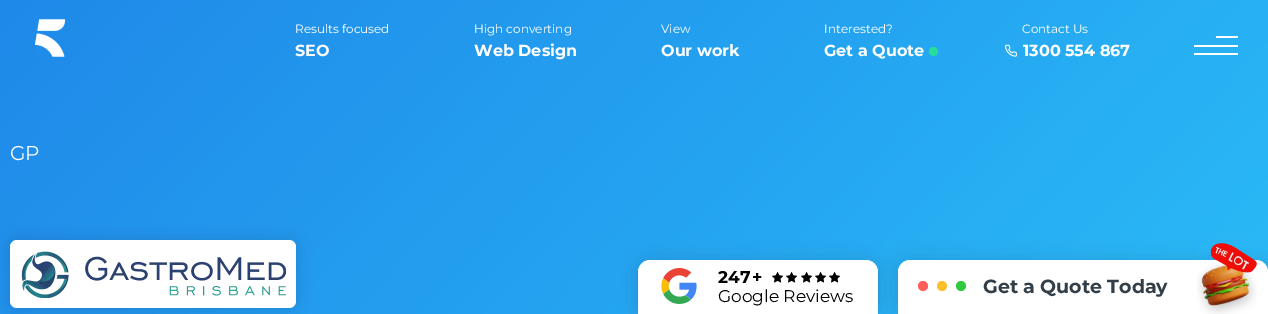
%!PS-Adobe-3.0
%%BoundingBox: 0 0 1268 314
%%LanguageLevel: 3
%%Pages: 1
%%EndComments
%%BeginProlog
/setink { dup -16 bitshift 255 div exch dup -8 bitshift 255 and 255 div exch 255 and 255 div setrgbcolor } def
/usefont { [ exch dup neg 0 0 3 -1 roll 0 0 ] selectfont } def
/setalpha { dup .setfillconstantalpha .setstrokeconstantalpha } def
/disc { newpath 0 360 arc closepath } def
/rrect { 5 dict begin { /r /h /w /y /x } { exch def } forall
  x r add y moveto x w add y 2 copy h add r arct x w add y h add x 1 index r arct
  x y h add x y r arct x y 2 copy exch w add exch r arct closepath end } def
/softshadow { 12 dict begin { /a /b /q /h /w /y /x } { exch def } forall gsave /was 0 def
  9 -2 -9 { dup b mul 4 div /e exch def 1 sub .425 mul 2.718 exch exp 1 add a .99 .min exch div /now exch def
    1 1 now sub 1 was sub div sub setalpha /was now def
    w h .min e 2 mul add 0 gt { x e sub y e sub w e 2 mul add h e 2 mul add
      q e add b .6 mul add w h .min 2 div e add .min 0 .max rrect fill } if } for grestore end } def
/drawimage { 5 dict begin { /h /w /y /x /name } { exch def } forall
  gsave x y translate w h scale
  w h 8 [w 0 0 h 0 0] name (r) file false 3 colorimage grestore end } def
%%EndProlog
%%BeginSetup
<< /PageSize [1268 314] /PageUsesTransparency true >> setpagedevice
%%EndSetup
%%Page: 1 1
0 .pushpdf14devicefilter
0 314 translate 1 -1 scale
4 setmiterlimit
16#FFFFFF setink
0 0 1268 314 rectfill
gsave 0 0 moveto 1268 0 lineto 1268 314 lineto 0 314 lineto closepath clip newpath
<< /ShadingType 2 /ColorSpace /DeviceRGB /Coords [127 -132 1141 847] /Extend [true true] /Function << /FunctionType 2 /Domain [0 1] /C0 [0.122 0.537 0.914] /C1 [0.173 0.776 0.98] /N 1 >> >> shfill grestore
(img1.raw) 35 19 30 38 drawimage
/Montserrat-Regular 12 usefont
295 33 moveto (Results focused) show
/Montserrat-Bold 16 usefont
295 56 moveto (SEO) show
/Montserrat-Regular 12 usefont
474 33 moveto (High converting) show
/Montserrat-Bold 16 usefont
474 56 moveto (Web Design) show
/Montserrat-Regular 12 usefont
661 33 moveto (View) show
/Montserrat-Bold 16 usefont
661 56 moveto (Our work) show
/Montserrat-Regular 12 usefont
824 33 moveto (Interested?) show
/Montserrat-Bold 16 usefont
824 56 moveto (Get a Quote) show
16#28DC9A setink
933.5 51.5 4.5 disc fill
/Montserrat-Regular 12 usefont
16#FFFFFF setink
1022 33 moveto (Contact Us) show
(img2.raw) 1005 44 12 13 drawimage
/Montserrat-Bold 16 usefont
1023 56 moveto (1300 554 867) show
[
    [1216 36 22 2 16#FFFFFF]
    [1194 45 44 2 16#FFFFFF]
    [1194 53 44 2 16#FFFFFF]
] { aload pop setink rectfill } forall
/Montserrat-Regular 20 usefont
10 160 moveto (GP) show
16#020613 setink
10 240 286 68 7 7.5 0.12 softshadow
16#FFFFFF setink
10 240 286 68 7 rrect fill
(img3.raw) 21 251 265 47 drawimage
16#000000 setink
638 261 240 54 12 10 0.13 softshadow
16#FFFFFF setink
650 260 moveto 866 260 lineto 872.5 260 878 265.5 878 272 curveto 878 314 lineto 638 314 lineto 638 272 lineto 638 265.5 643.5 260 650 260 curveto closepath fill
(img4.raw) 661 268 36 36 drawimage
/Montserrat-Bold 17 usefont
16#000000 setink
718 283 moveto (247) show
752 283 moveto (+) show
(img5.raw) 772 272 12 11 drawimage
(img5.raw) 786 272 12 11 drawimage
(img5.raw) 801 272 12 11 drawimage
(img5.raw) 815 272 12 11 drawimage
(img5.raw) 829 272 12 11 drawimage
/Montserrat-Regular 17 usefont
718 302 moveto (Google Reviews) show
898 261 370 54 12 10 0.13 softshadow
16#FFFFFF setink
910 260 moveto 1256 260 lineto 1262.5 260 1268 265.5 1268 272 curveto 1268 314 lineto 898 314 lineto 898 272 lineto 898 265.5 903.5 260 910 260 curveto closepath fill
16#FF5D5A setink
923 286 5 disc fill
16#FDBE2B setink
942 286 5 disc fill
16#2EC93E setink
961 286 5 disc fill
/Montserrat-Bold 19 usefont
16#323E48 setink
983 293 moveto (Get a Quote Today) show
(img6.raw) 1197 243 60 71 drawimage
.poppdf14devicefilter showpage
%%EOF
